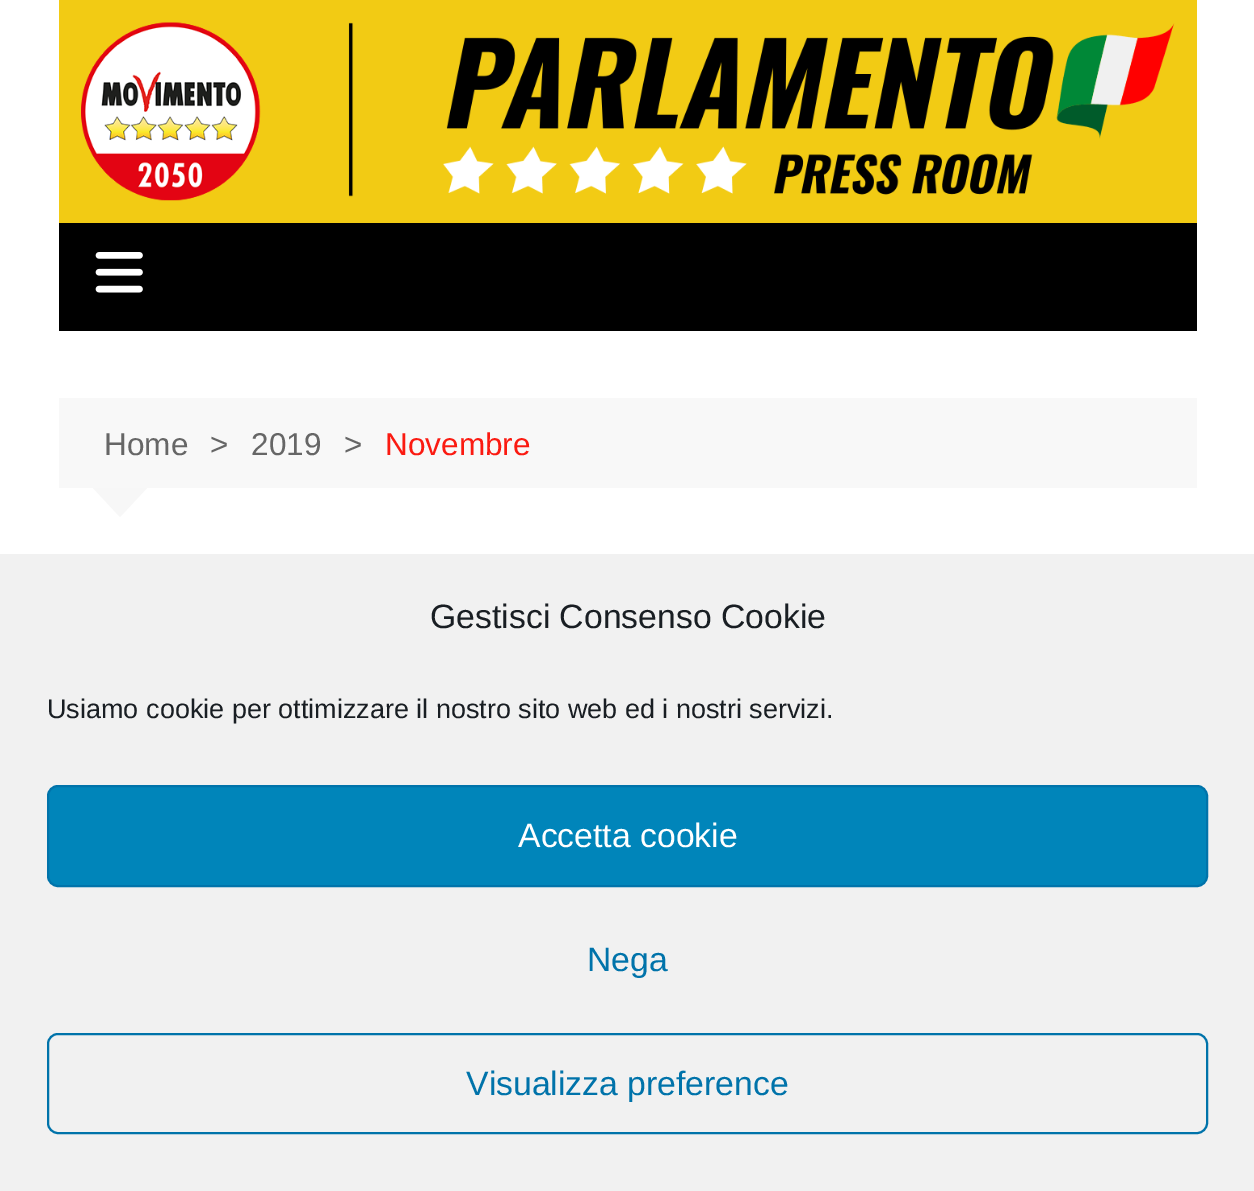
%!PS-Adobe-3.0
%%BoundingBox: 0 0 1254 1191
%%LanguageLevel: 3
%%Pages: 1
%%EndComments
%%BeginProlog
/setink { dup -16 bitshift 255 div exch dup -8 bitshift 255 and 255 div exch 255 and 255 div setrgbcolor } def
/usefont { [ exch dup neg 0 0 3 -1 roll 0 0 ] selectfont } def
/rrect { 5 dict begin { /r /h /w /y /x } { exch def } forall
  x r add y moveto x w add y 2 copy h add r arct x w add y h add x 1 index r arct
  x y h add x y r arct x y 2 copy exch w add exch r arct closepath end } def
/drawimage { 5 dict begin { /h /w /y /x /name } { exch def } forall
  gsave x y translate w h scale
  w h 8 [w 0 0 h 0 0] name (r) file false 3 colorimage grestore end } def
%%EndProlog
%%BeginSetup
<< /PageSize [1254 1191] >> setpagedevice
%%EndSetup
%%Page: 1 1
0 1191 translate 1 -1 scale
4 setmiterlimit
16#FFFFFF setink
0 0 1254 1191 rectfill
16#F2CB14 setink
59 0 1138 223 rectfill
(img1.raw) 81 22 1094 179 drawimage
16#000000 setink
59 223 1138 108 rectfill
(img2.raw) 95 252 48 41 drawimage
16#F8F8F8 setink
59 398 1138 90 rectfill
/LiberationSans-Regular 31.5 usefont
16#666666 setink
[
    [(Home) 104 455]
    [(>) 210 455]
    [(2019) 251 455]
    [(>) 344 455]
] { aload pop moveto show } forall
16#FB1A11 setink
385 455 moveto (Novembre) show
16#F7F7F7 setink
93 488 moveto 147 488 lineto 120 517 lineto closepath fill
16#F1F1F1 setink
0 554 1254 637 rectfill
/LiberationSans-Regular 33.75 usefont
16#191E23 setink
430 628 moveto (Gestisci Consenso Cookie) show
/LiberationSans-Regular 27 usefont
47 718 moveto (Usiamo cookie per ottimizzare il nostro sito web ed i nostri servizi.) show
16#0085BA setink
48 786 1159 100 10 rrect gsave fill grestore
16#0073AA setink
2 setlinewidth
stroke
/LiberationSans-Regular 33.75 usefont
16#FFFFFF setink
518 847 moveto (Accetta cookie) show
16#0073AA setink
587 971 moveto (Nega) show
48 1034 1159 99 10 rrect stroke
466 1095 moveto (Visualizza preference) show
showpage
%%EOF
